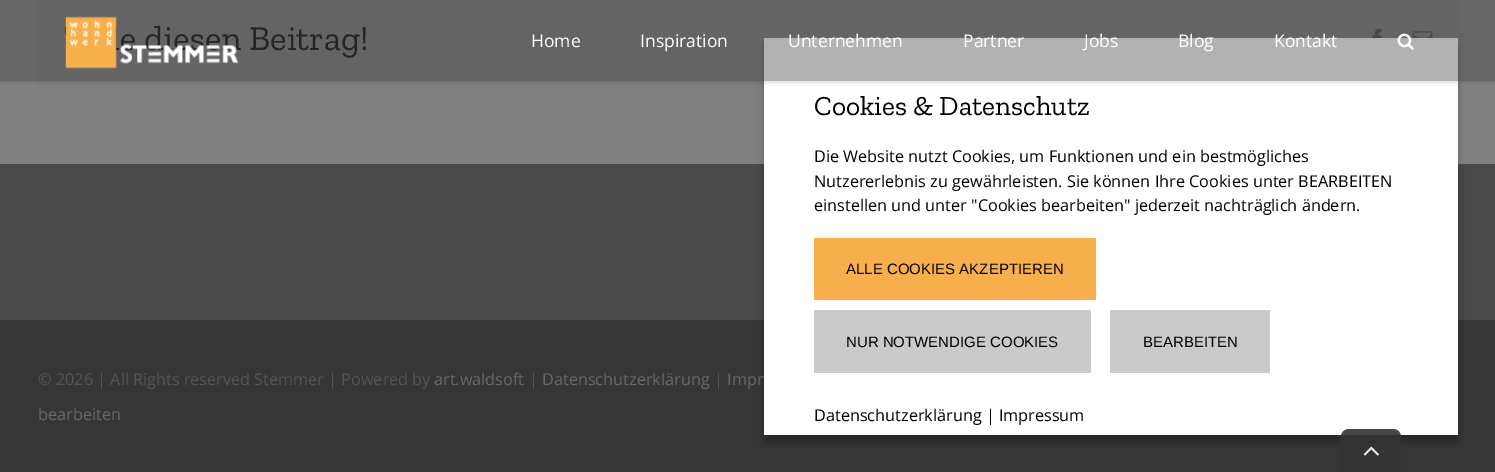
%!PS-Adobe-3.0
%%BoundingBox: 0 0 1495 472
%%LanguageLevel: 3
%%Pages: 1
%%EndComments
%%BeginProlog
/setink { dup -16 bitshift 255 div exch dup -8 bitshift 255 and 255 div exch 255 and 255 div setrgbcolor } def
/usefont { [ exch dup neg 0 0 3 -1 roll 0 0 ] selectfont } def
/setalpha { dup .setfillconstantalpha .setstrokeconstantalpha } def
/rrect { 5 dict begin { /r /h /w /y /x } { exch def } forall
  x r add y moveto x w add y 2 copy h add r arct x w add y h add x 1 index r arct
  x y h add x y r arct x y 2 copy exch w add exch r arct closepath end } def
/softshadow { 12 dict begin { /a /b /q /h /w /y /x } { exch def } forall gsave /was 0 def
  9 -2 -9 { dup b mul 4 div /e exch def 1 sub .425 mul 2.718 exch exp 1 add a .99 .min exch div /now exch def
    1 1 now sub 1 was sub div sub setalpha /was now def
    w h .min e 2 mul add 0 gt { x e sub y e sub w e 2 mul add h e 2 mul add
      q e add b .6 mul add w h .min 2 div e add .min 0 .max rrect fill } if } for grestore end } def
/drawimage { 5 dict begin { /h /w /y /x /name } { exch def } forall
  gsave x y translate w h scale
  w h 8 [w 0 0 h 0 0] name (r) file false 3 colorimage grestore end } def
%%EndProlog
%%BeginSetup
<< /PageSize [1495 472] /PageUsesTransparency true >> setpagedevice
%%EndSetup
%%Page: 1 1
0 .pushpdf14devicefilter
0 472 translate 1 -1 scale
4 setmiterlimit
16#808080 setink
0 0 1495 472 rectfill
16#7D7D7E setink
38 0 1420 89 rectfill
/ZillaSlab-Regular 35 usefont
16#11151A setink
110 50 moveto (le diesen Beitrag!) show
(img1.raw) 1372 28 10 10 drawimage
(img2.raw) 1412 31 21 7 drawimage
16#494949 setink
0 164 1495 156 rectfill
16#363637 setink
0 320 1495 152 rectfill
16#000000 setink
764 45 694 398 0 4 0.25 softshadow
16#FFFFFF setink
764 38 694 397 rectfill
gsave
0 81 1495 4 rectclip
16#000000 setink
0 1 1495 82 0 2 0.12 softshadow
grestore
0.4 setalpha
16#3F3F3F setink
0 0 1495 81 rectfill
1 setalpha
(img3.raw) 65 16 174 53 drawimage
/OpenSans-Regular 17.5 usefont
16#FFFFFF setink
[
    [(Home) 531 47]
    [(Inspiration) 640 47]
    [(Unternehmen) 788 47]
    [(Partner) 963 47]
    [(Jobs) 1084 47]
    [(Blog) 1178 47]
    [(Kontakt) 1274 47]
] { aload pop moveto show } forall
(img4.raw) 1397 33 17 17 drawimage
/OpenSans-Regular 16.25 usefont
16#535454 setink
38 385 moveto (© 2026 | All Rights reserved Stemmer | Powered by) show
16#676767 setink
434 385 moveto (art.waldsoft) show
16#535454 setink
529 385 moveto (|) show
16#676767 setink
542 385 moveto (Datenschutzerklärung) show
16#535454 setink
714 385 moveto (|) show
16#676767 setink
727 385 moveto (Impr) show
38 420 moveto (bearbeiten) show
/ZillaSlab-Regular 27.5 usefont
16#000000 setink
814 115 moveto (Cookies & Datenschutz) show
/OpenSans-Regular 16.25 usefont
[
    [(Die Website nutzt Cookies, um Funktionen und ein bestmögliches) 814 162]
    [(Nutzererlebnis zu gewährleisten. Sie können Ihre Cookies unter BEARBEITEN) 814 187]
    [(einstellen und unter "Cookies bearbeiten" jederzeit nachträglich ändern.) 814 211]
] { aload pop moveto show } forall
16#F7AF4B setink
814 238 282 62 rectfill
/LiberationSans-Regular 15 usefont
16#000000 setink
846 274 moveto (ALLE COOKIES AKZEPTIEREN) show
16#CACACA setink
814 310 277 63 rectfill
16#000000 setink
846 347 moveto (NUR NOTWENDIGE COOKIES) show
16#CACACA setink
1110 310 160 63 rectfill
16#000000 setink
1143 347 moveto (BEARBEITEN) show
/OpenSans-Regular 16.25 usefont
814 421 moveto (Datenschutzerklärung | Impressum) show
0.9 setalpha
16#333333 setink
1349 429 moveto 1393 429 lineto 1397.5 429 1401 432.5 1401 437 curveto 1401 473 lineto 1341 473 lineto 1341 437 lineto 1341 432.5 1344.5 429 1349 429 curveto closepath fill
1 setalpha
(img5.raw) 1363 446 16 10 drawimage
.poppdf14devicefilter showpage
%%EOF
